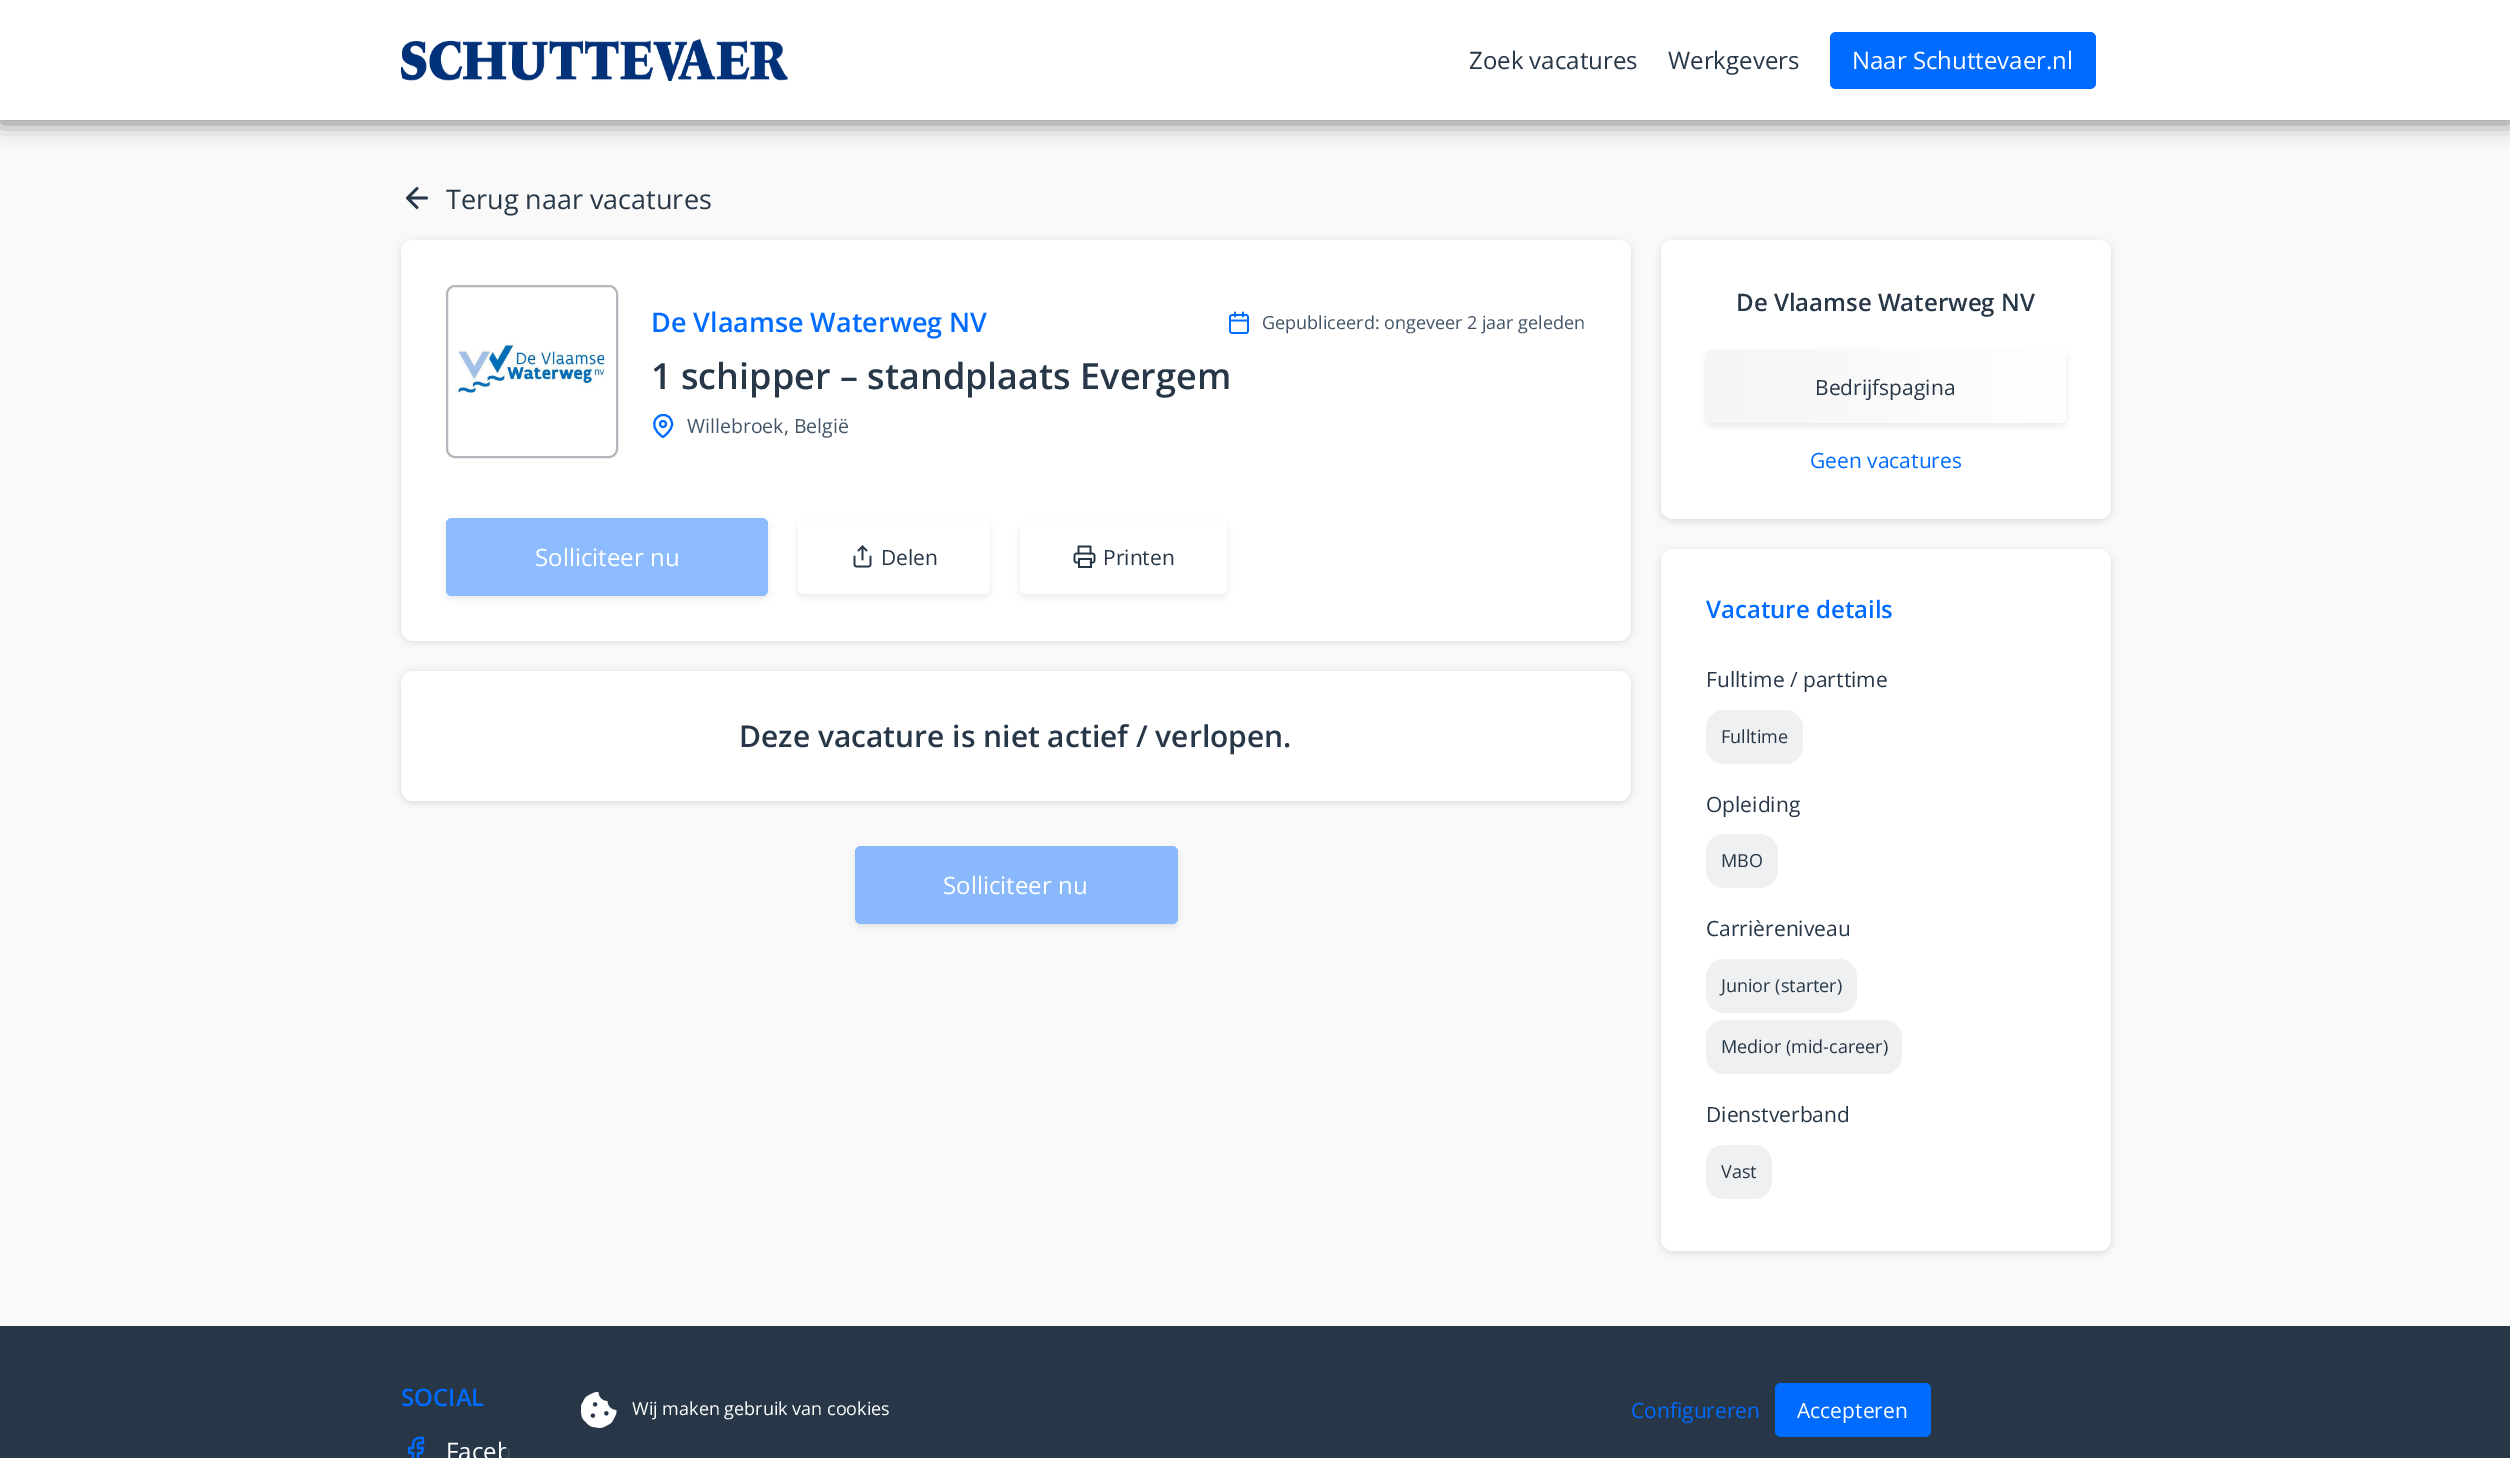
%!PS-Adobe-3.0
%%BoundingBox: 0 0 2510 1458
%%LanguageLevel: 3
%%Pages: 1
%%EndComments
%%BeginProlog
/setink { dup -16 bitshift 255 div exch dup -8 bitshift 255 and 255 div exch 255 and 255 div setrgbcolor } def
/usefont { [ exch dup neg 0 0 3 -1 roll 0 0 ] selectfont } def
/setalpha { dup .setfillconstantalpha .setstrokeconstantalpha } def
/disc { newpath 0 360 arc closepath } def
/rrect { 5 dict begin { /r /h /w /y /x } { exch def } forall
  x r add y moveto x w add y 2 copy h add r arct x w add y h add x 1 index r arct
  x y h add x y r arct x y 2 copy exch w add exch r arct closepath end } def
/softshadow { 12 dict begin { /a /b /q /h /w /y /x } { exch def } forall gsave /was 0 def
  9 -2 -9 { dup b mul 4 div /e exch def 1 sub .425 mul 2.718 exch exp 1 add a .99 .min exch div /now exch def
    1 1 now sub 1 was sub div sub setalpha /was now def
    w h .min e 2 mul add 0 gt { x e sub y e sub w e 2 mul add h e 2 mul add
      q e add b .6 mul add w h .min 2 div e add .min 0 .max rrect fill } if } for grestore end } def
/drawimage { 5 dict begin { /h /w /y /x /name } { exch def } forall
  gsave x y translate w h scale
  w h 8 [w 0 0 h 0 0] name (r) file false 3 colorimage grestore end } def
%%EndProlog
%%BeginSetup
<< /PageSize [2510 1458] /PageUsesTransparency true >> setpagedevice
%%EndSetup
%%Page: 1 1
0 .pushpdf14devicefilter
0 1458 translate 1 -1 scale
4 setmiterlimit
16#F9F9F9 setink
0 0 2510 1458 rectfill
16#000000 setink
0 3 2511 120 0 10.5 0.5 softshadow
16#FFFFFF setink
0 0 2510 120 rectfill
(img1.raw) 401 39 387 42 drawimage
/OpenSans-Regular 24 usefont
16#273747 setink
1469 69 moveto (Zoek vacatures) show
1668 69 moveto (Werkgevers) show
16#006BFF setink
1830 32 266 57 6 rrect fill
16#FFFFFF setink
1852 69 moveto (Naar Schuttevaer.nl) show
16#273747 setink
2.8 setlinewidth
1 setlinecap
1 setlinejoin
426.5 198 moveto 407.5 198 lineto 417 207.5 moveto 407.5 198 lineto 417 188.5 lineto stroke
/OpenSans-Regular 27 usefont
446 209 moveto (Terug naar vacatures) show
16#000000 setink
401 242 1230 400 12 4 0.12 softshadow
16#FFFFFF setink
401 240 1230 401 12 rrect fill
16#B3B8BE setink
2 setlinewidth
0 setlinecap
0 setlinejoin
447 286 170 171 8 rrect stroke
(img2.raw) 454 342 153 53 drawimage
/OpenSans-SemiBold 27 usefont
16#006BFF setink
651 332 moveto (De Vlaamse Waterweg NV) show
(img3.raw) 1229 311 20 23 drawimage
/OpenSans-Regular 18 usefont
16#425467 setink
1262 329 moveto (Gepubliceerd: ongeveer 2 jaar geleden) show
/OpenSans-SemiBold 36 usefont
16#273747 setink
651 389 moveto (1 schipper – standplaats Evergem) show
16#006BFF setink
1 setlinecap
1 setlinejoin
672 424 moveto 672 431 663 437 663 437 curveto 644 424.5 660 408.5 669.5 417.5 curveto 671 419.5 672 421.5 672 424 curveto closepath stroke
0 setlinecap
0 setlinejoin
663 424 3 disc stroke
/OpenSans-Regular 19.5 usefont
16#425467 setink
687 433 moveto (Willebroek, België) show
gsave
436 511 moveto 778 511 lineto 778 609 lineto 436 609 lineto closepath 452 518 moveto 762 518 lineto 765.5 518 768 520.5 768 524 curveto 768 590 lineto 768 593.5 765.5 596 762 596 curveto 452 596 lineto 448.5 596 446 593.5 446 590 curveto 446 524 lineto 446 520.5 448.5 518 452 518 curveto closepath eoclip newpath
16#273747 setink
446 521 322 78 6 3 0.1 softshadow
grestore
0.45 setalpha
16#006BFF setink
446 518 322 78 6 rrect fill
/OpenSans-Regular 24 usefont
1 setalpha
16#FFFFFF setink
535 566 moveto (Solliciteer nu) show
16#273747 setink
798 524 192 73 6 3 0.1 softshadow
16#FFFFFF setink
798 521 192 73 6 rrect fill
(img4.raw) 853 545 19 23 drawimage
/OpenSans-Regular 21 usefont
16#273747 setink
881 565 moveto (Delen) show
1020 524 207 73 6 3 0.1 softshadow
16#FFFFFF setink
1020 521 207 73 6 rrect fill
(img5.raw) 1073 545 23 23 drawimage
16#273747 setink
1103 565 moveto (Printen) show
16#000000 setink
401 672 1230 131 12 4 0.12 softshadow
16#FFFFFF setink
401 671 1230 130 12 rrect fill
/OpenSans-SemiBold 30 usefont
16#273747 setink
739 747 moveto (Deze vacature is niet actief / verlopen.) show
gsave
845 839 moveto 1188 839 lineto 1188 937 lineto 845 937 lineto closepath 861 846 moveto 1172 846 lineto 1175.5 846 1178 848.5 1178 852 curveto 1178 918 lineto 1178 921.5 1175.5 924 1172 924 curveto 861 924 lineto 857.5 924 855 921.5 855 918 curveto 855 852 lineto 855 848.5 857.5 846 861 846 curveto closepath eoclip newpath
855 849 323 78 6 3 0.1 softshadow
grestore
0.45 setalpha
16#006BFF setink
855 846 323 78 6 rrect fill
/OpenSans-Regular 24 usefont
1 setalpha
16#FFFFFF setink
943 894 moveto (Solliciteer nu) show
16#000000 setink
1661 242 450 279 12 4 0.12 softshadow
16#FFFFFF setink
1661 240 450 279 12 rrect fill
/OpenSans-SemiBold 24 usefont
16#273747 setink
1736 311 moveto (De Vlaamse Waterweg NV) show
1706 353 360 73 6 3 0.1 softshadow
gsave 1706 350 360 73 6 rrect clip newpath
<< /ShadingType 2 /ColorSpace /DeviceRGB /Coords [2066 386 1706 386] /Extend [true true] /Function << /FunctionType 2 /Domain [0 1] /C0 [1 1 1] /C1 [0.961 0.961 0.961] /N 1 >> >> shfill grestore
/OpenSans-Regular 21 usefont
1815 395 moveto (Bedrijfspagina) show
16#006BFF setink
1810 468 moveto (Geen vacatures) show
16#000000 setink
1661 551 450 702 12 4 0.12 softshadow
16#FFFFFF setink
1661 549 450 702 12 rrect fill
/OpenSans-SemiBold 24 usefont
16#006BFF setink
1706 618 moveto (Vacature details) show
/OpenSans-Regular 21 usefont
16#273747 setink
1706 687 moveto (Fulltime / parttime) show
16#EFF0F1 setink
1706 710 97 54 18 rrect fill
/OpenSans-Regular 18 usefont
16#273747 setink
1721 743 moveto (Fulltime) show
/OpenSans-Regular 21 usefont
1706 812 moveto (Opleiding) show
16#EFF0F1 setink
1706 834 72 54 18 rrect fill
/OpenSans-Regular 18 usefont
16#273747 setink
1721 867 moveto (MBO) show
/OpenSans-Regular 21 usefont
1706 936 moveto (Carrièreniveau) show
16#EFF0F1 setink
1706 959 151 54 18 rrect fill
/OpenSans-Regular 18 usefont
16#273747 setink
1721 992 moveto (Junior \(starter\)) show
16#EFF0F1 setink
1706 1020 196 54 18 rrect fill
16#273747 setink
1721 1053 moveto (Medior \(mid-career\)) show
/OpenSans-Regular 21 usefont
1706 1122 moveto (Dienstverband) show
16#EFF0F1 setink
1706 1145 66 54 18 rrect fill
/OpenSans-Regular 18 usefont
16#273747 setink
1721 1178 moveto (Vast) show
0 1326 2510 132 rectfill
/OpenSans-SemiBold 24 usefont
16#006BFF setink
401 1406 moveto (SOCIAL) show
(img6.raw) 408 1436 17 22 drawimage
/OpenSans-Regular 24 usefont
16#FFFFFF setink
446 1460 moveto (Faceb) show
0.9 setalpha
16#273747 setink
512 1361 moveto 2000 1361 lineto 2003.5 1361 2006 1363.5 2006 1367 curveto 2006 1458 lineto 506 1458 lineto 506 1367 lineto 506 1363.5 508.5 1361 512 1361 curveto closepath fill
1 setalpha
(img7.raw) 581 1392 36 36 drawimage
/OpenSans-Regular 18 usefont
16#FFFFFF setink
632 1415 moveto (Wij maken gebruik van cookies) show
/OpenSans-Regular 21 usefont
16#006BFF setink
1631 1418 moveto (Configureren) show
1775 1383 156 54 6 rrect fill
16#FFFFFF setink
1797 1418 moveto (Accepteren) show
.poppdf14devicefilter showpage
%%EOF
